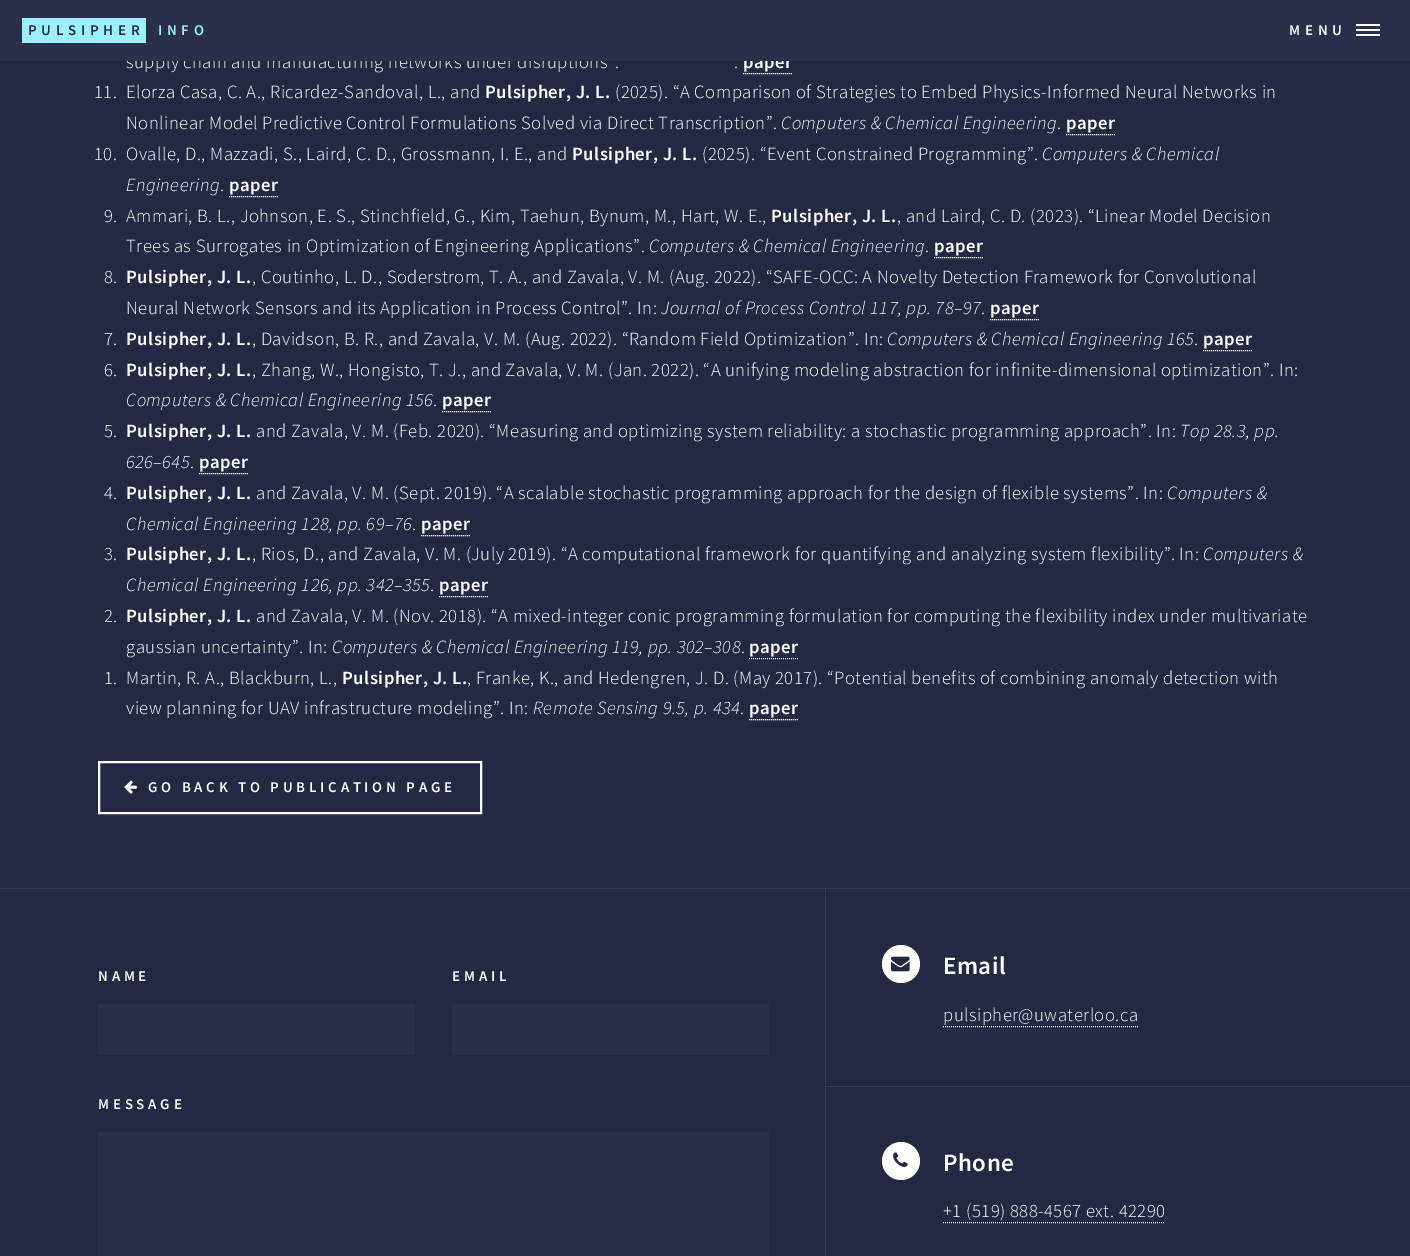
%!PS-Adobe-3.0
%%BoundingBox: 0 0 1410 1256
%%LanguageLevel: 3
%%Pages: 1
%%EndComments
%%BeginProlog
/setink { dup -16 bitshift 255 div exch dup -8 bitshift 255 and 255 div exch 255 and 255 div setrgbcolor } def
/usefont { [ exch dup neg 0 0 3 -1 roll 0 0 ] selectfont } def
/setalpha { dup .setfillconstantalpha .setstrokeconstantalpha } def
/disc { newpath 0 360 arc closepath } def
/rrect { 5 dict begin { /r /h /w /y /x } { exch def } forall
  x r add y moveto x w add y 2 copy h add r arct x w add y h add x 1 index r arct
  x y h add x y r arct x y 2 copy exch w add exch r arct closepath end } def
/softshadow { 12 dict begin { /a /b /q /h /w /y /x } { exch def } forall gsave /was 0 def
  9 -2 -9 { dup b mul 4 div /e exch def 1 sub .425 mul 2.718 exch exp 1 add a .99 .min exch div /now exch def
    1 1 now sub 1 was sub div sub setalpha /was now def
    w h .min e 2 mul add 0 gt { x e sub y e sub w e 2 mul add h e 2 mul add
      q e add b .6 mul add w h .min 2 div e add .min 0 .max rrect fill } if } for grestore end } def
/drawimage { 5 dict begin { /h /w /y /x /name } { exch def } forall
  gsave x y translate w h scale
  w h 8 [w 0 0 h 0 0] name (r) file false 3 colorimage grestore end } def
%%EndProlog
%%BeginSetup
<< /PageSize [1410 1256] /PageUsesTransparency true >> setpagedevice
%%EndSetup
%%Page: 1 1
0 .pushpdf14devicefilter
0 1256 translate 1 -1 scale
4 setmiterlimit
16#242943 setink
0 0 1410 1256 rectfill
16#000000 setink
0 0 1410 61 0 2.5 0.15 softshadow
/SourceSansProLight-Light 18.67 usefont
16#FFFFFF setink
126 68 moveto 0.47 0 (supply chain and manufacturing networks under disruptions”.) ashow
/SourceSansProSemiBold-SemiBold 18.67 usefont
743 68 moveto 0.47 0 (paper) ashow
16#2A2F4A setink
0 0 1410 61 rectfill
16#9BF1FF setink
22 18 124 25 rectfill
/SourceSansProSemiBold-SemiBold 14.9 usefont
16#242943 setink
28 35 moveto 4.75 0 (PULSIPHER) ashow
16#9BF1FF setink
158 35 moveto 4.75 0 (INFO) ashow
16#FFFFFF setink
1289 35 moveto 4.75 0 (MENU) ashow
[
    [1356 24 24 2 16#FFFFFF]
    [1356 34 24 2 16#FFFFFF]
    [1356 29 24 2 16#FFFFFF]
    [0 888 1410 1 16#363A56]
] { aload pop setink rectfill } forall
/SourceSansProLight-Light 18.67 usefont
16#FFFFFF setink
734 68 moveto 0.47 0 (.) ashow
[1 1] 0 setdash
743 73.5 moveto 792 73.5 lineto stroke
94 98 moveto 0.47 0 (11.) ashow
126 98 moveto 0.47 0 (Elorza Casa, C. A., Ricardez-Sandoval, L., and) ashow
/SourceSansProSemiBold-SemiBold 18.67 usefont
485 98 moveto 0.47 0 (Pulsipher, J. L.) ashow
/SourceSansProLight-Light 18.67 usefont
615 98 moveto 0.47 0 (\(2025\). “A Comparison of Strategies to Embed Physics-Informed Neural Networks in) ashow
126 129 moveto 0.47 0 (Nonlinear Model Predictive Control Formulations Solved via Direct Transcription”.) ashow
/SourceSansProLight-LightItalic 18.67 usefont
781 129 moveto 0.47 0 (Computers & Chemical Engineering) ashow
/SourceSansProLight-Light 18.67 usefont
1057 129 moveto 0.47 0 (.) ashow
/SourceSansProSemiBold-SemiBold 18.67 usefont
1066 129 moveto 0.47 0 (paper) ashow
1066 134.5 moveto 1115 134.5 lineto stroke
/SourceSansProLight-Light 18.67 usefont
94 160 moveto 0.47 0 (10.) ashow
126 160 moveto 0.47 0 (Ovalle, D., Mazzadi, S., Laird, C. D., Grossmann, I. E., and) ashow
/SourceSansProSemiBold-SemiBold 18.67 usefont
572 160 moveto 0.47 0 (Pulsipher, J. L.) ashow
/SourceSansProLight-Light 18.67 usefont
702 160 moveto 0.47 0 (\(2025\). “Event Constrained Programming”.) ashow
/SourceSansProLight-LightItalic 18.67 usefont
1042 160 moveto 0.47 0 (Computers & Chemical) ashow
126 191 moveto 0.47 0 (Engineering) ashow
/SourceSansProLight-Light 18.67 usefont
220 191 moveto 0.47 0 (.) ashow
/SourceSansProSemiBold-SemiBold 18.67 usefont
229 191 moveto 0.47 0 (paper) ashow
229 196.5 moveto 278 196.5 lineto stroke
/SourceSansProLight-Light 18.67 usefont
104 222 moveto 0.47 0 (9.) ashow
126 222 moveto 0.47 0 (Ammari, B. L., Johnson, E. S., Stinchfield, G., Kim, Taehun, Bynum, M., Hart, W. E.,) ashow
/SourceSansProSemiBold-SemiBold 18.67 usefont
771 222 moveto 0.47 0 (Pulsipher, J. L.) ashow
/SourceSansProLight-Light 18.67 usefont
897 222 moveto 0.47 0 (, and Laird, C. D. \(2023\). “Linear Model Decision) ashow
126 252 moveto 0.47 0 (Trees as Surrogates in Optimization of Engineering Applications”.) ashow
/SourceSansProLight-LightItalic 18.67 usefont
649 252 moveto 0.47 0 (Computers & Chemical Engineering) ashow
/SourceSansProLight-Light 18.67 usefont
925 252 moveto 0.47 0 (.) ashow
/SourceSansProSemiBold-SemiBold 18.67 usefont
934 252 moveto 0.47 0 (paper) ashow
934 257.5 moveto 983 257.5 lineto stroke
/SourceSansProLight-Light 18.67 usefont
104 283 moveto 0.47 0 (8.) ashow
/SourceSansProSemiBold-SemiBold 18.67 usefont
126 283 moveto 0.47 0 (Pulsipher, J. L.) ashow
/SourceSansProLight-Light 18.67 usefont
252 283 moveto 0.47 0 (, Coutinho, L. D., Soderstrom, T. A., and Zavala, V. M. \(Aug. 2022\). “SAFE-OCC: A Novelty Detection Framework for Convolutional) ashow
126 314 moveto 0.47 0 (Neural Network Sensors and its Application in Process Control”. In:) ashow
/SourceSansProLight-LightItalic 18.67 usefont
661 314 moveto 0.47 0 (Journal of Process Control 117, pp. 78–97) ashow
/SourceSansProLight-Light 18.67 usefont
981 314 moveto 0.47 0 (.) ashow
/SourceSansProSemiBold-SemiBold 18.67 usefont
990 314 moveto 0.47 0 (paper) ashow
990 319.5 moveto 1039 319.5 lineto stroke
/SourceSansProLight-Light 18.67 usefont
104 345 moveto 0.47 0 (7.) ashow
/SourceSansProSemiBold-SemiBold 18.67 usefont
126 345 moveto 0.47 0 (Pulsipher, J. L.) ashow
/SourceSansProLight-Light 18.67 usefont
252 345 moveto 0.47 0 (, Davidson, B. R., and Zavala, V. M. \(Aug. 2022\). “Random Field Optimization”. In:) ashow
/SourceSansProLight-LightItalic 18.67 usefont
887 345 moveto 0.47 0 (Computers & Chemical Engineering 165) ashow
/SourceSansProLight-Light 18.67 usefont
1194 345 moveto 0.47 0 (.) ashow
/SourceSansProSemiBold-SemiBold 18.67 usefont
1203 345 moveto 0.47 0 (paper) ashow
1203 350.5 moveto 1252 350.5 lineto stroke
/SourceSansProLight-Light 18.67 usefont
104 376 moveto 0.47 0 (6.) ashow
/SourceSansProSemiBold-SemiBold 18.67 usefont
126 376 moveto 0.47 0 (Pulsipher, J. L.) ashow
/SourceSansProLight-Light 18.67 usefont
252 376 moveto 0.47 0 (, Zhang, W., Hongisto, T. J., and Zavala, V. M. \(Jan. 2022\). “A unifying modeling abstraction for infinite-dimensional optimization”. In:) ashow
/SourceSansProLight-LightItalic 18.67 usefont
126 406 moveto 0.47 0 (Computers & Chemical Engineering 156) ashow
/SourceSansProLight-Light 18.67 usefont
433 406 moveto 0.47 0 (.) ashow
/SourceSansProSemiBold-SemiBold 18.67 usefont
442 406 moveto 0.47 0 (paper) ashow
442 411.5 moveto 491 411.5 lineto stroke
/SourceSansProLight-Light 18.67 usefont
104 437 moveto 0.47 0 (5.) ashow
/SourceSansProSemiBold-SemiBold 18.67 usefont
126 437 moveto 0.47 0 (Pulsipher, J. L.) ashow
/SourceSansProLight-Light 18.67 usefont
256 437 moveto 0.47 0 (and Zavala, V. M. \(Feb. 2020\). “Measuring and optimizing system reliability: a stochastic programming approach”. In:) ashow
/SourceSansProLight-LightItalic 18.67 usefont
1180 437 moveto 0.47 0 (Top 28.3, pp.) ashow
126 468 moveto 0.47 0 (626–645) ashow
/SourceSansProLight-Light 18.67 usefont
190 468 moveto 0.47 0 (.) ashow
/SourceSansProSemiBold-SemiBold 18.67 usefont
199 468 moveto 0.47 0 (paper) ashow
199 473.5 moveto 248 473.5 lineto stroke
/SourceSansProLight-Light 18.67 usefont
104 499 moveto 0.47 0 (4.) ashow
/SourceSansProSemiBold-SemiBold 18.67 usefont
126 499 moveto 0.47 0 (Pulsipher, J. L.) ashow
/SourceSansProLight-Light 18.67 usefont
256 499 moveto 0.47 0 (and Zavala, V. M. \(Sept. 2019\). “A scalable stochastic programming approach for the design of flexible systems”. In:) ashow
/SourceSansProLight-LightItalic 18.67 usefont
1167 499 moveto 0.47 0 (Computers &) ashow
126 530 moveto 0.47 0 (Chemical Engineering 128, pp. 69–76) ashow
/SourceSansProLight-Light 18.67 usefont
412 530 moveto 0.47 0 (.) ashow
/SourceSansProSemiBold-SemiBold 18.67 usefont
421 530 moveto 0.47 0 (paper) ashow
421 535.5 moveto 470 535.5 lineto stroke
/SourceSansProLight-Light 18.67 usefont
104 560 moveto 0.47 0 (3.) ashow
/SourceSansProSemiBold-SemiBold 18.67 usefont
126 560 moveto 0.47 0 (Pulsipher, J. L.) ashow
/SourceSansProLight-Light 18.67 usefont
252 560 moveto 0.47 0 (, Rios, D., and Zavala, V. M. \(July 2019\). “A computational framework for quantifying and analyzing system flexibility”. In:) ashow
/SourceSansProLight-LightItalic 18.67 usefont
1203 560 moveto 0.47 0 (Computers &) ashow
126 591 moveto 0.47 0 (Chemical Engineering 126, pp. 342–355) ashow
/SourceSansProLight-Light 18.67 usefont
430 591 moveto 0.47 0 (.) ashow
/SourceSansProSemiBold-SemiBold 18.67 usefont
439 591 moveto 0.47 0 (paper) ashow
439 596.5 moveto 488 596.5 lineto stroke
/SourceSansProLight-Light 18.67 usefont
104 622 moveto 0.47 0 (2.) ashow
/SourceSansProSemiBold-SemiBold 18.67 usefont
126 622 moveto 0.47 0 (Pulsipher, J. L.) ashow
/SourceSansProLight-Light 18.67 usefont
256 622 moveto 0.47 0 (and Zavala, V. M. \(Nov. 2018\). “A mixed-integer conic programming formulation for computing the flexibility index under multivariate) ashow
126 653 moveto 0.47 0 (gaussian uncertainty”. In:) ashow
/SourceSansProLight-LightItalic 18.67 usefont
332 653 moveto 0.47 0 (Computers & Chemical Engineering 119, pp. 302–308) ashow
/SourceSansProLight-Light 18.67 usefont
741 653 moveto 0.47 0 (.) ashow
/SourceSansProSemiBold-SemiBold 18.67 usefont
749 653 moveto 0.47 0 (paper) ashow
749 658.5 moveto 799 658.5 lineto stroke
/SourceSansProLight-Light 18.67 usefont
104 684 moveto 0.47 0 (1.) ashow
126 684 moveto 0.47 0 (Martin, R. A., Blackburn, L.,) ashow
/SourceSansProSemiBold-SemiBold 18.67 usefont
342 684 moveto 0.47 0 (Pulsipher, J. L.) ashow
/SourceSansProLight-Light 18.67 usefont
467 684 moveto 0.47 0 (, Franke, K., and Hedengren, J. D. \(May 2017\). “Potential benefits of combining anomaly detection with) ashow
126 714 moveto 0.47 0 (view planning for UAV infrastructure modeling”. In:) ashow
/SourceSansProLight-LightItalic 18.67 usefont
533 714 moveto 0.47 0 (Remote Sensing 9.5, p. 434) ashow
/SourceSansProLight-Light 18.67 usefont
740 714 moveto 0.47 0 (.) ashow
/SourceSansProSemiBold-SemiBold 18.67 usefont
749 714 moveto 0.47 0 (paper) ashow
749 719.5 moveto 798 719.5 lineto stroke
2 setlinewidth
[] 0 setdash
99 762 382 51 rectstroke
(img1.raw) 124 780 13 14 drawimage
/SourceSansProSemiBold-SemiBold 14.9 usefont
148 792 moveto 3.75 0 (GO BACK TO PUBLICATION PAGE) ashow
16#363A56 setink
825 889 1 367 rectfill
16#FFFFFF setink
98 981 moveto 3.75 0 (NAME) ashow
16#2A2F4A setink
98 1004 317 51 rectfill
16#FFFFFF setink
452 981 moveto 3.75 0 (EMAIL) ashow
16#2A2F4A setink
452 1004 317 51 rectfill
16#FFFFFF setink
98 1109 moveto 3.75 0 (MESSAGE) ashow
16#2A2F4A setink
98 1132 671 124 rectfill
16#FFFFFF setink
901 964 19 disc fill
(img2.raw) 891 956 19 16 drawimage
/SourceSansProSemiBold-SemiBold 25 usefont
943 974 moveto 0.47 0 (Email) ashow
/SourceSansProLight-Light 18.67 usefont
943 1021 moveto 0.47 0 (pulsipher@uwaterloo.ca) ashow
1 setlinewidth
[1 1] 0 setdash
943 1026.5 moveto 1138 1026.5 lineto stroke
16#363A56 setink
826 1086 584 1 rectfill
16#FFFFFF setink
901 1161 19 disc fill
(img3.raw) 893 1152 15 15 drawimage
/SourceSansProSemiBold-SemiBold 25 usefont
943 1171 moveto 0.47 0 (Phone) ashow
/SourceSansProLight-Light 18.67 usefont
943 1217 moveto 0.47 0 (+1 \(519\) 888-4567 ext. 42290) ashow
943 1222.5 moveto 1165 1222.5 lineto stroke
.poppdf14devicefilter showpage
%%EOF
